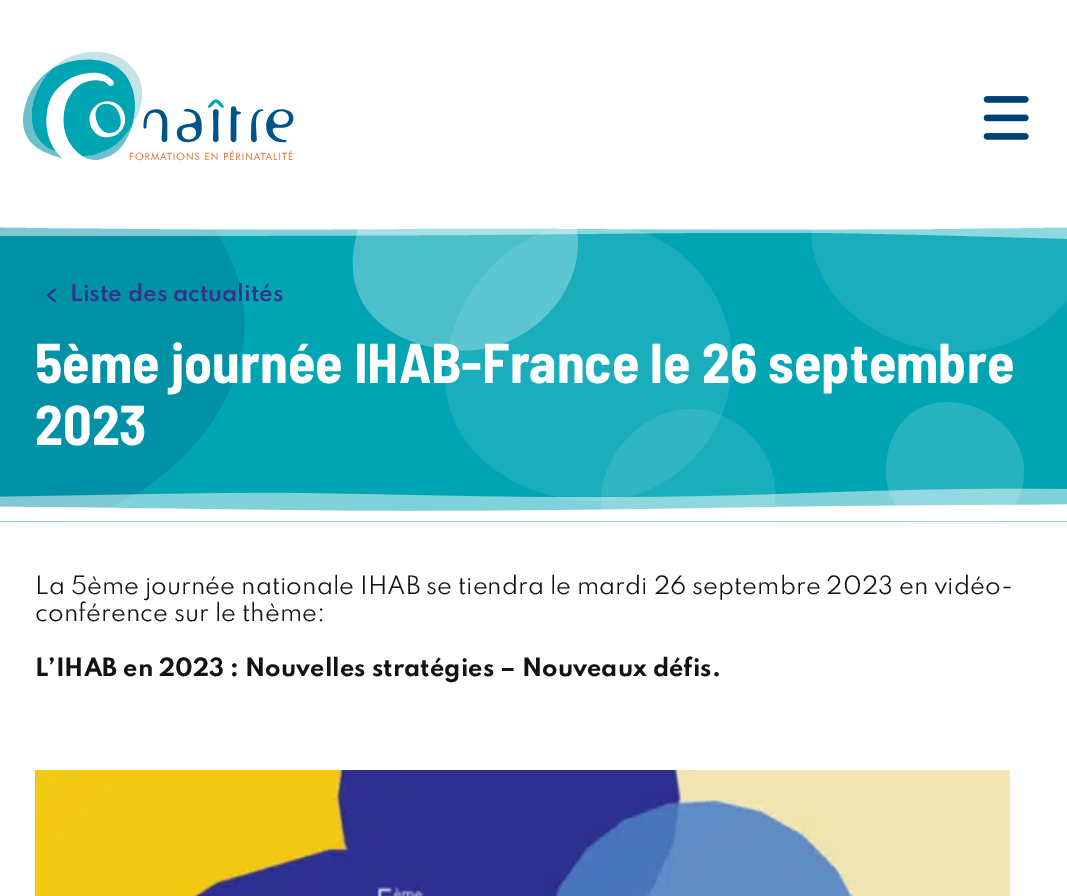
%!PS-Adobe-3.0
%%BoundingBox: 0 0 1067 896
%%LanguageLevel: 3
%%Pages: 1
%%EndComments
%%BeginProlog
/setink { dup -16 bitshift 255 div exch dup -8 bitshift 255 and 255 div exch 255 and 255 div setrgbcolor } def
/usefont { [ exch dup neg 0 0 3 -1 roll 0 0 ] selectfont } def
/setalpha { dup .setfillconstantalpha .setstrokeconstantalpha } def
/drawimage { 5 dict begin { /h /w /y /x /name } { exch def } forall
  gsave x y translate w h scale
  w h 8 [w 0 0 h 0 0] name (r) file false 3 colorimage grestore end } def
%%EndProlog
%%BeginSetup
<< /PageSize [1067 896] /PageUsesTransparency true >> setpagedevice
%%EndSetup
%%Page: 1 1
0 .pushpdf14devicefilter
0 896 translate 1 -1 scale
4 setmiterlimit
16#FFFFFF setink
0 0 1067 896 rectfill
(img1.raw) 23 51 271 110 drawimage
(img2.raw) 983 96 46 44 drawimage
16#00A5B4 setink
0 227 1067 295 rectfill
(img3.raw) 0 227 1067 295 drawimage
0.5 setalpha
16#FFFFFF setink
-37 236 moveto 96 236 294 236 469 235 curveto 593 234 710 232 831 233 curveto 1024 236 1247 247 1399 242 curveto 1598 235 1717 236 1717 236 curveto 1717 227 lineto 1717 227 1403 224 1020 228 curveto 744 232 529 227 395 229 curveto 258 231 -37 227 -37 227 curveto closepath fill
1 setalpha
-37 210 moveto 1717 210 lineto 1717 227 lineto 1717 227 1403 224 1020 228 curveto 744 232 529 227 395 229 curveto 258 231 -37 227 -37 227 curveto closepath fill
(img4.raw) 46 288 10 14 drawimage
/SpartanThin-SemiBold 21 usefont
16#382F8A setink
70 301 moveto (Liste des actualités) show
/BarlowSemiCondensed-Bold 56 usefont
16#FFFFFF setink
35 383 moveto (5ème journée IHAB-France le 26 septembre) show
35 445 moveto (2023) show
(img5.raw) 0 488 1067 34 drawimage
/SpartanThin-Regular 22.4 usefont
16#131313 setink
35 594 moveto (La 5ème journée nationale IHAB se tiendra le mardi 26 septembre 2023 en vidéo-) show
35 621 moveto (conférence sur le thème:) show
/SpartanThin-Bold 22.4 usefont
35 676 moveto (L’IHAB en 2023 : Nouvelles stratégies – Nouveaux défis.) show
(img6.raw) 35 770 975 126 drawimage
.poppdf14devicefilter showpage
%%EOF
